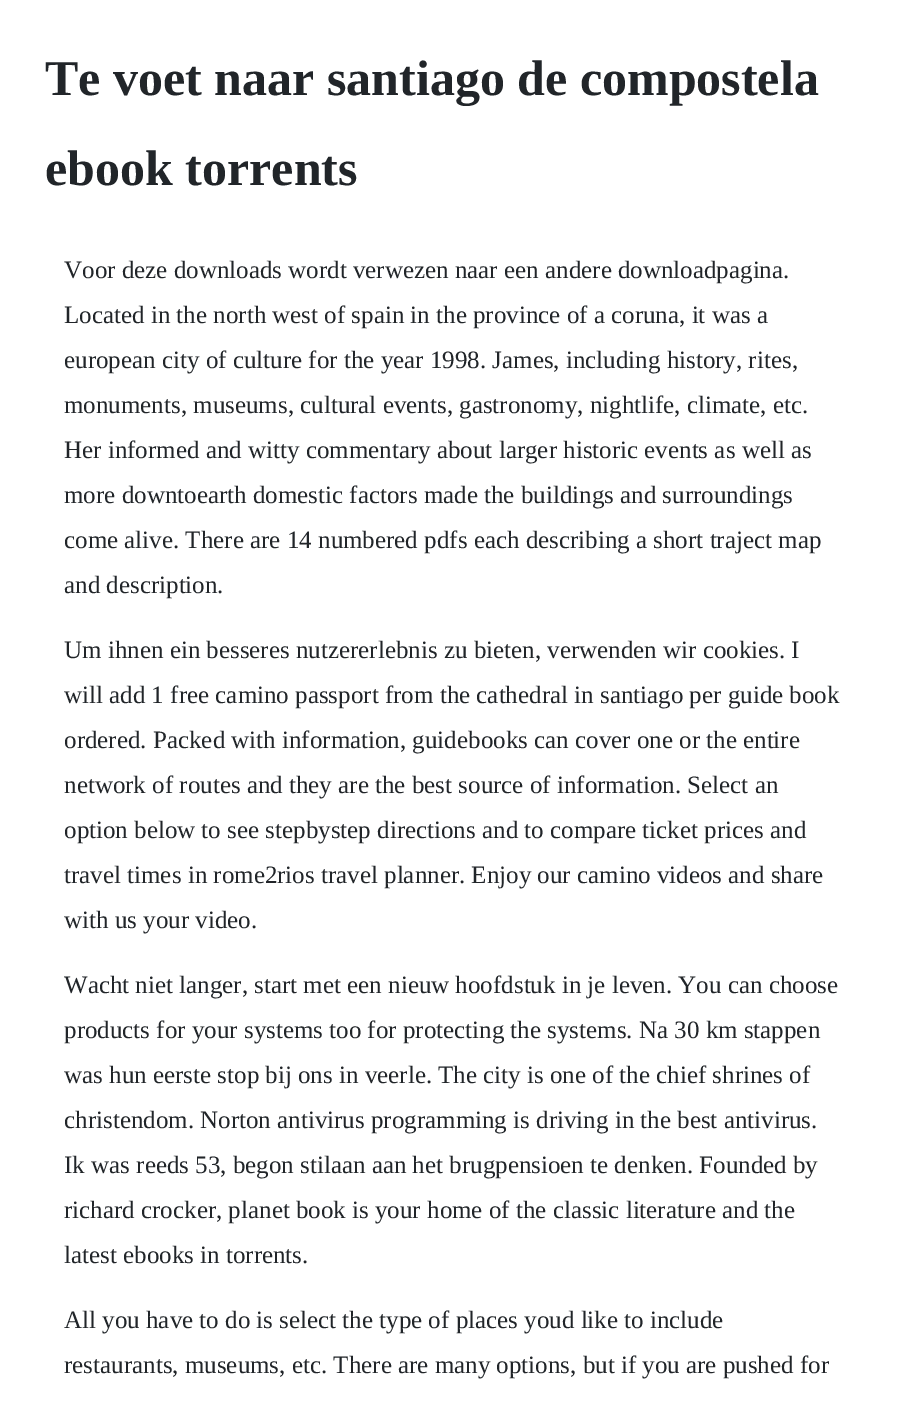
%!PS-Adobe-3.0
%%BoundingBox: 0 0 903 1411
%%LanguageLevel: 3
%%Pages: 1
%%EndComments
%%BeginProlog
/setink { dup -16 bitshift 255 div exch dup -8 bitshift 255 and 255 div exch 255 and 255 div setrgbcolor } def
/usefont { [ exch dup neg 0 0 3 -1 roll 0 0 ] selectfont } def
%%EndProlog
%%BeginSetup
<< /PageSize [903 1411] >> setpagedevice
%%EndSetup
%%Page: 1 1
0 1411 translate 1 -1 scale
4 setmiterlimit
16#FFFFFF setink
0 0 903 1411 rectfill
/LiberationSerif-Bold 50 usefont
16#212529 setink
45 95 moveto (Te voet naar santiago de compostela) show
45 185 moveto (ebook torrents) show
/LiberationSerif-Regular 25 usefont
[
    [(Voor deze downloads wordt verwezen naar een andere downloadpagina.) 64 278]
    [(Located in the north west of spain in the province of a coruna, it was a) 64 323]
    [(european city of culture for the year 1998. James, including history, rites,) 64 368]
    [(monuments, museums, cultural events, gastronomy, nightlife, climate, etc.) 64 413]
    [(Her informed and witty commentary about larger historic events as well as) 64 458]
    [(more downtoearth domestic factors made the buildings and surroundings) 64 503]
    [(come alive. There are 14 numbered pdfs each describing a short traject map) 64 548]
    [(and description.) 64 593]
    [(Um ihnen ein besseres nutzererlebnis zu bieten, verwenden wir cookies. I) 64 658]
    [(will add 1 free camino passport from the cathedral in santiago per guide book) 64 703]
    [(ordered. Packed with information, guidebooks can cover one or the entire) 64 748]
    [(network of routes and they are the best source of information. Select an) 64 793]
    [(option below to see stepbystep directions and to compare ticket prices and) 64 838]
    [(travel times in rome2rios travel planner. Enjoy our camino videos and share) 64 883]
    [(with us your video.) 64 928]
    [(Wacht niet langer, start met een nieuw hoofdstuk in je leven. You can choose) 64 993]
    [(products for your systems too for protecting the systems. Na 30 km stappen) 64 1038]
    [(was hun eerste stop bij ons in veerle. The city is one of the chief shrines of) 64 1083]
    [(christendom. Norton antivirus programming is driving in the best antivirus.) 64 1128]
    [(Ik was reeds 53, begon stilaan aan het brugpensioen te denken. Founded by) 64 1173]
    [(richard crocker, planet book is your home of the classic literature and the) 64 1218]
    [(latest ebooks in torrents.) 64 1263]
    [(All you have to do is select the type of places youd like to include) 64 1328]
    [(restaurants, museums, etc. There are many options, but if you are pushed for) 64 1373]
] { aload pop moveto show } forall
showpage
%%EOF
